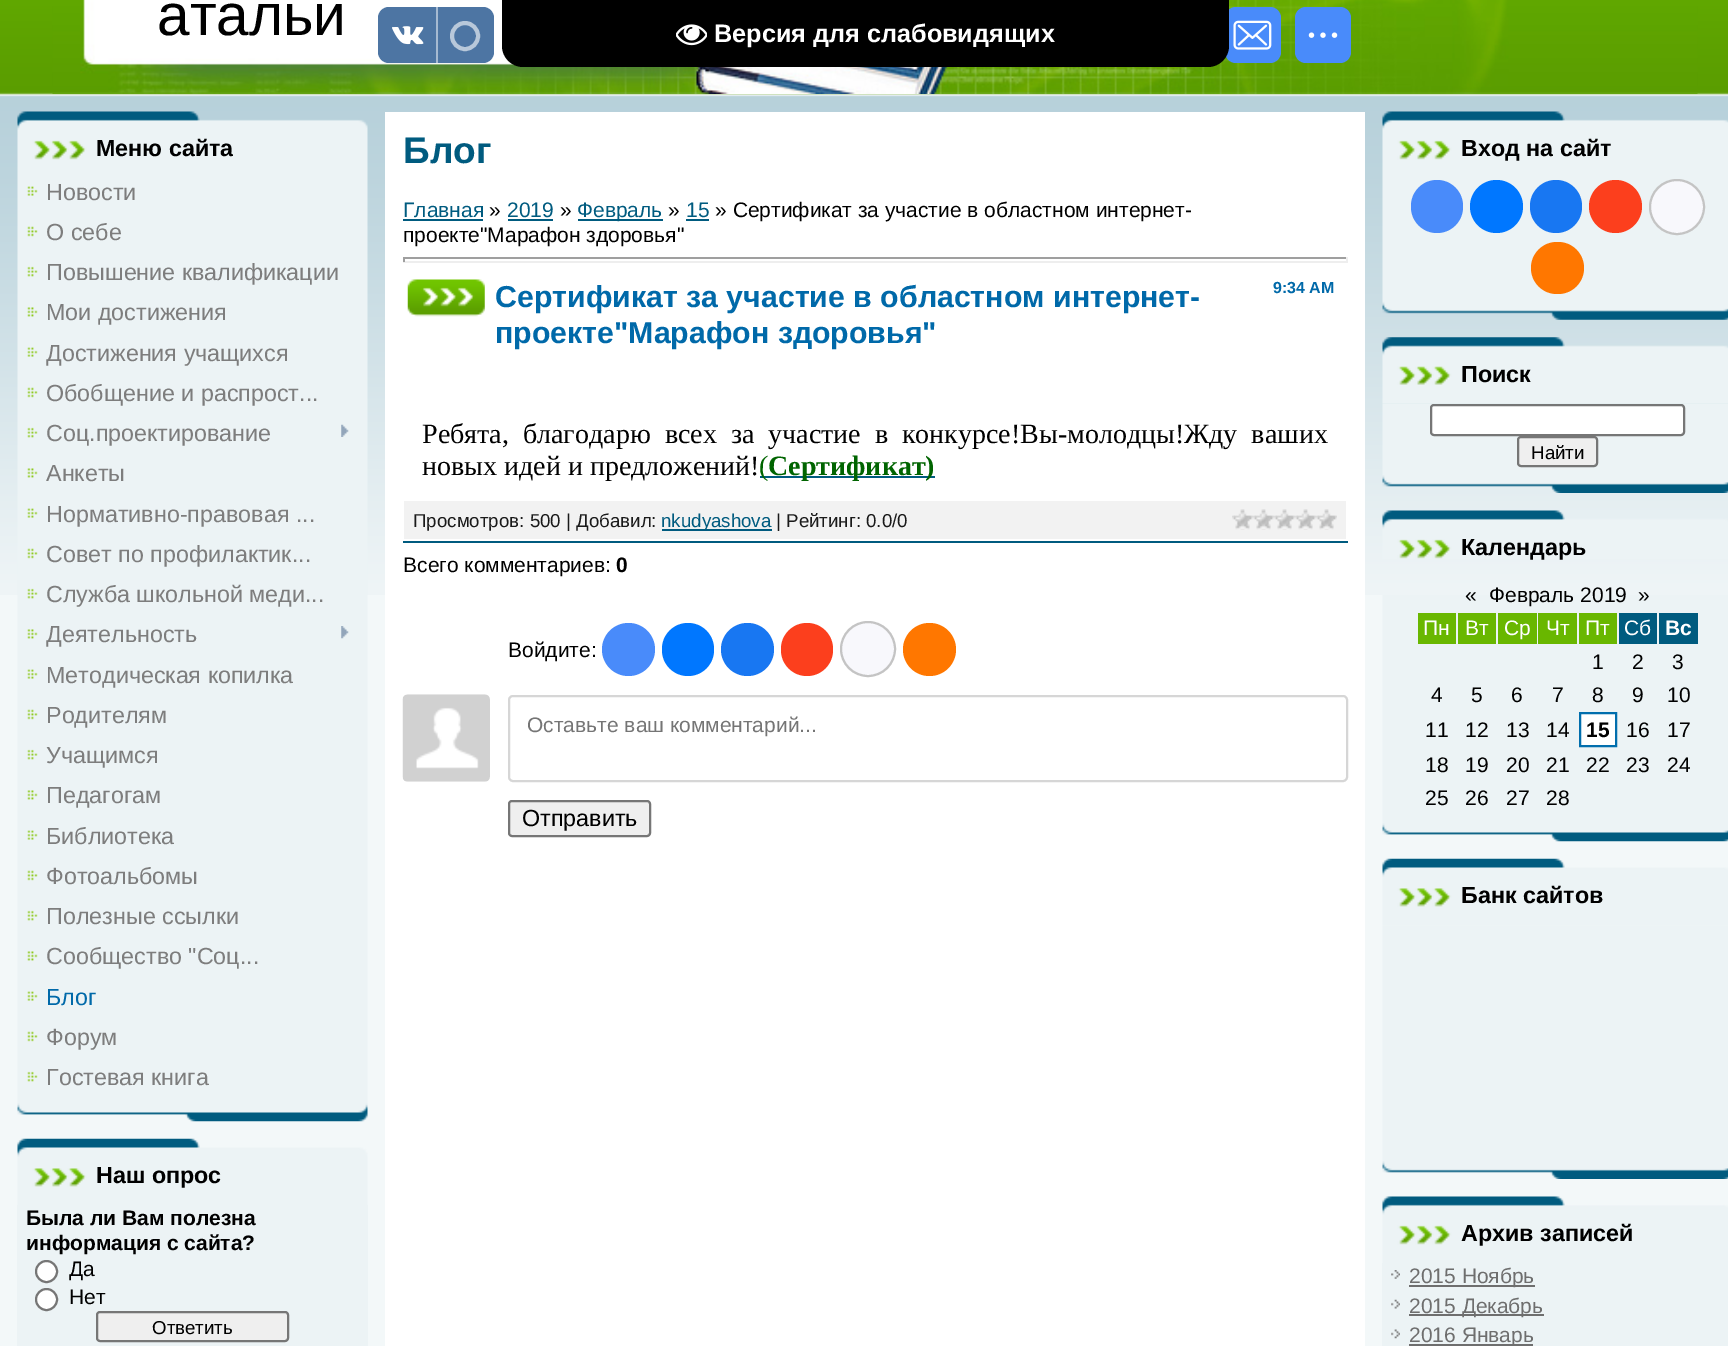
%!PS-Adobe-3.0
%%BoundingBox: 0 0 1728 1346
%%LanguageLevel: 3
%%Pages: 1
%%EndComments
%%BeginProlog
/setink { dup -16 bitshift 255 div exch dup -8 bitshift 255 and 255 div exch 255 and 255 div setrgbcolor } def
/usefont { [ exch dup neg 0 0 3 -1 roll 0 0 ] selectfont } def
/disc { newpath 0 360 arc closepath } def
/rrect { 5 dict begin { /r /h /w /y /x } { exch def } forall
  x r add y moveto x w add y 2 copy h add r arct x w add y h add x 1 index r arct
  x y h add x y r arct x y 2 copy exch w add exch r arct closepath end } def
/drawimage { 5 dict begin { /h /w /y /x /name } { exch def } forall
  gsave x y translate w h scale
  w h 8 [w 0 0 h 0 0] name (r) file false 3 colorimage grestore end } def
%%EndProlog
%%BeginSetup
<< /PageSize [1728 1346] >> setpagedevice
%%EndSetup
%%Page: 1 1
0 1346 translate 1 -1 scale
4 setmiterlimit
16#F3F8F9 setink
0 0 1728 1346 rectfill
(img1.raw) 0 0 1728 595 drawimage
(img2.raw) 52 0 1646 94 drawimage
/LiberationSans-Regular 58.5 usefont
16#000000 setink
157 35 moveto (атальи) show
(img3.raw) 17 111 351 67 drawimage
/LiberationSans-Bold 23.3 usefont
96 156 moveto (Меню сайта) show
(img4.raw) 17 178 351 944 drawimage
(img5.raw) 27 186 11 10 drawimage
/LiberationSans-Regular 23.3 usefont
16#7D7D7D setink
46 200 moveto (Новости) show
(img6.raw) 27 226 11 11 drawimage
46 240 moveto (О себе) show
(img7.raw) 27 266 11 11 drawimage
46 280 moveto (Повышение квалификации) show
(img8.raw) 27 307 11 10 drawimage
46 320 moveto (Мои достижения) show
(img5.raw) 27 347 11 10 drawimage
46 361 moveto (Достижения учащихся) show
(img6.raw) 27 387 11 11 drawimage
46 401 moveto (Обобщение и распрост...) show
(img7.raw) 27 427 11 11 drawimage
46 441 moveto (Соц.проектирование) show
(img9.raw) 341 424 8 13 drawimage
(img8.raw) 27 468 11 10 drawimage
46 481 moveto (Анкеты) show
(img5.raw) 27 508 11 10 drawimage
46 522 moveto (Нормативно-правовая ...) show
(img6.raw) 27 548 11 11 drawimage
46 562 moveto (Совет по профилактик...) show
(img7.raw) 27 588 11 11 drawimage
46 602 moveto (Служба школьной меди...) show
(img8.raw) 27 629 11 10 drawimage
46 642 moveto (Деятельность) show
(img10.raw) 341 626 8 13 drawimage
(img5.raw) 27 669 11 10 drawimage
46 683 moveto (Методическая копилка) show
(img6.raw) 27 709 11 11 drawimage
46 723 moveto (Родителям) show
(img7.raw) 27 749 11 11 drawimage
46 763 moveto (Учащимся) show
(img8.raw) 27 790 11 10 drawimage
46 803 moveto (Педагогам) show
(img5.raw) 27 830 11 10 drawimage
46 844 moveto (Библиотека) show
(img6.raw) 27 870 11 11 drawimage
46 884 moveto (Фотоальбомы) show
(img7.raw) 27 910 11 11 drawimage
46 924 moveto (Полезные ссылки) show
(img8.raw) 27 951 11 10 drawimage
46 964 moveto (Сообщество "Соц...) show
(img5.raw) 27 991 11 10 drawimage
16#0069A9 setink
46 1005 moveto (Блог) show
(img6.raw) 27 1031 11 11 drawimage
16#7D7D7D setink
46 1045 moveto (Форум) show
(img7.raw) 27 1071 11 11 drawimage
46 1085 moveto (Гостевая книга) show
(img11.raw) 17 1138 351 67 drawimage
/LiberationSans-Bold 23.3 usefont
16#000000 setink
96 1183 moveto (Наш опрос) show
16#ECF3F5 setink
17 1205 351 141 rectfill
/LiberationSans-Bold 21 usefont
16#000000 setink
26 1225 moveto (Была ли Вам полезна) show
26 1250 moveto (информация с сайта?) show
16#FFFFFF setink
46.5 1271.5 10.5 disc gsave fill grestore
16#767676 setink
2 setlinewidth
stroke
/LiberationSans-Regular 21 usefont
16#000000 setink
69 1276 moveto (Да) show
16#FFFFFF setink
46.5 1299.5 10.5 disc gsave fill grestore
16#767676 setink
stroke
16#000000 setink
69 1304 moveto (Нет) show
16#EFEFEF setink
97 1312 191 29 3 rrect gsave fill grestore
16#767676 setink
stroke
/LiberationSans-Regular 18.7 usefont
16#000000 setink
152 1334 moveto (Ответить) show
16#FFFFFF setink
385 112 980 1234 rectfill
/LiberationSans-Bold 37 usefont
16#005B7F setink
403 163 moveto (Блог) show
/LiberationSans-Regular 21 usefont
403 217 moveto (Главная) show
403 219 80 2 rectfill
16#000000 setink
489 217 moveto (») show
16#005B7F setink
507 217 moveto (2019) show
508 219 45 2 rectfill
16#000000 setink
560 217 moveto (») show
16#005B7F setink
578 219 85 2 rectfill
577 217 moveto (Февраль) show
16#000000 setink
668 217 moveto (») show
16#005B7F setink
686 217 moveto (15) show
686 219 23 2 rectfill
16#000000 setink
715 217 moveto (» Сертификат за участие в областном интернет-) show
403 242 moveto (проекте"Марафон здоровья") show
[
    [403 257 945 2 16#9F9F9F]
    [1346 257 2 5 16#EEEEEE]
    [403 261 945 2 16#EEEEEE]
    [403 257 2 5 16#9F9F9F]
    [403 541 945 2 16#005B7F]
] { aload pop setink rectfill } forall
(img12.raw) 407 279 78 38 drawimage
/LiberationSans-Bold 30.3 usefont
16#0069A9 setink
495 307 moveto (Сертификат за участие в областном интернет-) show
/LiberationSans-Bold 16 usefont
1273 293 moveto (9:34 AM) show
/LiberationSans-Bold 30.3 usefont
495 343 moveto (проекте"Марафон здоровья") show
/LiberationSerif-Regular 28 usefont
16#000000 setink
422 443 moveto 7 0 32 (Ребята, благодарю всех за участие в конкурсе!Вы-молодцы!Жду ваших) widthshow
422 475 moveto (новых идей и предложений!) show
16#005B7F setink
760 476 175 2 rectfill
16#006400 setink
759 475 moveto (\() show
/LiberationSerif-Bold 28 usefont
768 475 moveto (Сертификат\)) show
16#F2F2F2 setink
404 501 942 38 rectfill
/LiberationSans-Regular 18.7 usefont
16#1A1A1A setink
413 527 moveto (Просмотров: 500 | Добавил:) show
16#005B7F setink
662 529 110 2 rectfill
661 527 moveto (nkudyashova) show
16#1A1A1A setink
776 527 moveto (| Рейтинг: 0.0/0) show
(img13.raw) 1232 509 105 21 drawimage
/LiberationSans-Regular 21 usefont
16#000000 setink
403 572 moveto (Всего комментариев:) show
/LiberationSans-Bold 21 usefont
616 572 moveto (0) show
/LiberationSans-Regular 21 usefont
508 657 moveto (Войдите:) show
16#498BFA setink
628.5 649.5 26.5 disc fill
16#0077FF setink
662 623 52 53 26 rrect fill
16#1877F2 setink
747.5 649.5 26.5 disc fill
16#FC3F1D setink
781 623 52 53 26 rrect fill
16#F8F8FC setink
868 649 27 disc gsave fill grestore
16#C4C4C4 setink
stroke
16#FF7700 setink
929.5 649.5 26.5 disc fill
(img14.raw) 402 694 88 88 drawimage
16#D6D6D6 setink
509 696 838 85 4 rrect stroke
16#757575 setink
527 732 moveto (Оставьте ваш комментарий...) show
16#EFEFEF setink
509 801 141 35 3 rrect gsave fill grestore
16#767676 setink
stroke
/LiberationSans-Regular 23.3 usefont
16#000000 setink
522 826 moveto (Отправить) show
(img15.raw) 1382 111 346 67 drawimage
/LiberationSans-Bold 23.3 usefont
1461 156 moveto (Вход на сайт) show
(img16.raw) 1382 178 346 142 drawimage
16#498BFA setink
1411 180 52 53 26 rrect fill
16#0077FF setink
1496.5 206.5 26.5 disc fill
16#1877F2 setink
1530 180 52 53 26 rrect fill
16#FC3F1D setink
1615.5 206.5 26.5 disc fill
16#F8F8FC setink
1677 207 27 disc gsave fill grestore
16#C4C4C4 setink
stroke
16#FF7700 setink
1531 242 53 52 26 rrect fill
(img17.raw) 1382 337 346 67 drawimage
16#000000 setink
1461 382 moveto (Поиск) show
(img18.raw) 1382 404 346 89 drawimage
16#FFFFFF setink
1431 405 253 30 3 rrect gsave fill grestore
16#767676 setink
stroke
16#EFEFEF setink
1518 437 79 29 3 rrect gsave fill grestore
16#767676 setink
stroke
/LiberationSans-Regular 18.7 usefont
16#000000 setink
1531 459 moveto (Найти) show
(img19.raw) 1382 510 346 49 drawimage
/LiberationSans-Bold 23.3 usefont
1461 555 moveto (Календарь) show
(img20.raw) 1382 595 346 247 drawimage
/LiberationSans-Regular 21 usefont
[
    [(«) 1465 602]
    [(Февраль 2019) 1489 602]
    [(») 1638 602]
] { aload pop moveto show } forall
16#69B700 setink
1418 613 38 31 rectfill
16#FFFFFF setink
1423 635 moveto (Пн) show
16#69B700 setink
1458 613 38 31 rectfill
16#FFFFFF setink
1465 635 moveto (Вт) show
16#69B700 setink
1498 613 39 31 rectfill
16#FFFFFF setink
1504 635 moveto (Ср) show
16#69B700 setink
1538 613 39 31 rectfill
16#FFFFFF setink
1546 635 moveto (Чт) show
16#69B700 setink
1579 613 38 31 rectfill
16#FFFFFF setink
1585 635 moveto (Пт) show
16#005B7F setink
1619 613 38 31 rectfill
16#FFFFFF setink
1624 635 moveto (Сб) show
16#005B7F setink
1659 613 39 31 rectfill
/LiberationSans-Bold 21 usefont
16#FFFFFF setink
1665 635 moveto (Вс) show
/LiberationSans-Regular 21 usefont
16#000000 setink
[
    [(1) 1592 669]
    [(2) 1632 669]
    [(3) 1672 669]
    [(4) 1431 702]
    [(5) 1471 702]
    [(6) 1511 702]
    [(7) 1552 702]
    [(8) 1592 702]
    [(9) 1632 702]
    [(10) 1667 702]
    [(11) 1425 737]
    [(12) 1465 737]
    [(13) 1506 737]
    [(14) 1546 737]
] { aload pop moveto show } forall
16#FFFFFF setink
1580 713 moveto 1616 713 lineto 1616 746 lineto 1580 746 lineto closepath gsave fill grestore
16#016EAD setink
stroke
/LiberationSans-Bold 21 usefont
16#000000 setink
1586 737 moveto (15) show
/LiberationSans-Regular 21 usefont
[
    [(16) 1626 737]
    [(17) 1667 737]
    [(18) 1425 772]
    [(19) 1465 772]
    [(20) 1506 772]
    [(21) 1546 772]
    [(22) 1586 772]
    [(23) 1626 772]
    [(24) 1667 772]
    [(25) 1425 805]
    [(26) 1465 805]
    [(27) 1506 805]
    [(28) 1546 805]
] { aload pop moveto show } forall
(img21.raw) 1382 858 346 67 drawimage
/LiberationSans-Bold 23.3 usefont
1461 903 moveto (Банк сайтов) show
(img22.raw) 1382 925 346 254 drawimage
(img23.raw) 1382 1196 346 67 drawimage
1461 1241 moveto (Архив записей) show
16#ECF3F5 setink
1382 1263 346 83 rectfill
(img24.raw) 1391 1270 9 9 drawimage
16#6E6E6E setink
1409 1285 126 2 rectfill
/LiberationSans-Regular 21 usefont
1409 1283 moveto (2015 Ноябрь) show
(img25.raw) 1391 1299 9 10 drawimage
1409 1314 135 2 rectfill
1409 1313 moveto (2015 Декабрь) show
(img26.raw) 1391 1329 9 10 drawimage
1409 1344 124 2 rectfill
1409 1342 moveto (2016 Январь) show
16#4D75A3 setink
378 7 116 56 11 rrect fill
(img27.raw) 392 26 32 19 drawimage
16#A6BAD1 setink
436 7 2 56 rectfill
16#B8C8DA setink
4 setlinewidth
465 36 13 disc stroke
16#498BFA setink
1225 7 56 56 11 rrect fill
(img28.raw) 1233 20 39 30 drawimage
1295 7 56 56 11 rrect fill
(img29.raw) 1308 32 30 6 drawimage
16#000000 setink
502 0 moveto 1229 0 lineto 1229 46 lineto 1229 57.5 1219.5 67 1208 67 curveto 523 67 lineto 511.5 67 502 57.5 502 46 curveto closepath fill
(img30.raw) 676 24 31 22 drawimage
/LiberationSans-Bold 25.25 usefont
16#FFFFFF setink
714 42 moveto (Версия для слабовидящих) show
showpage
%%EOF
